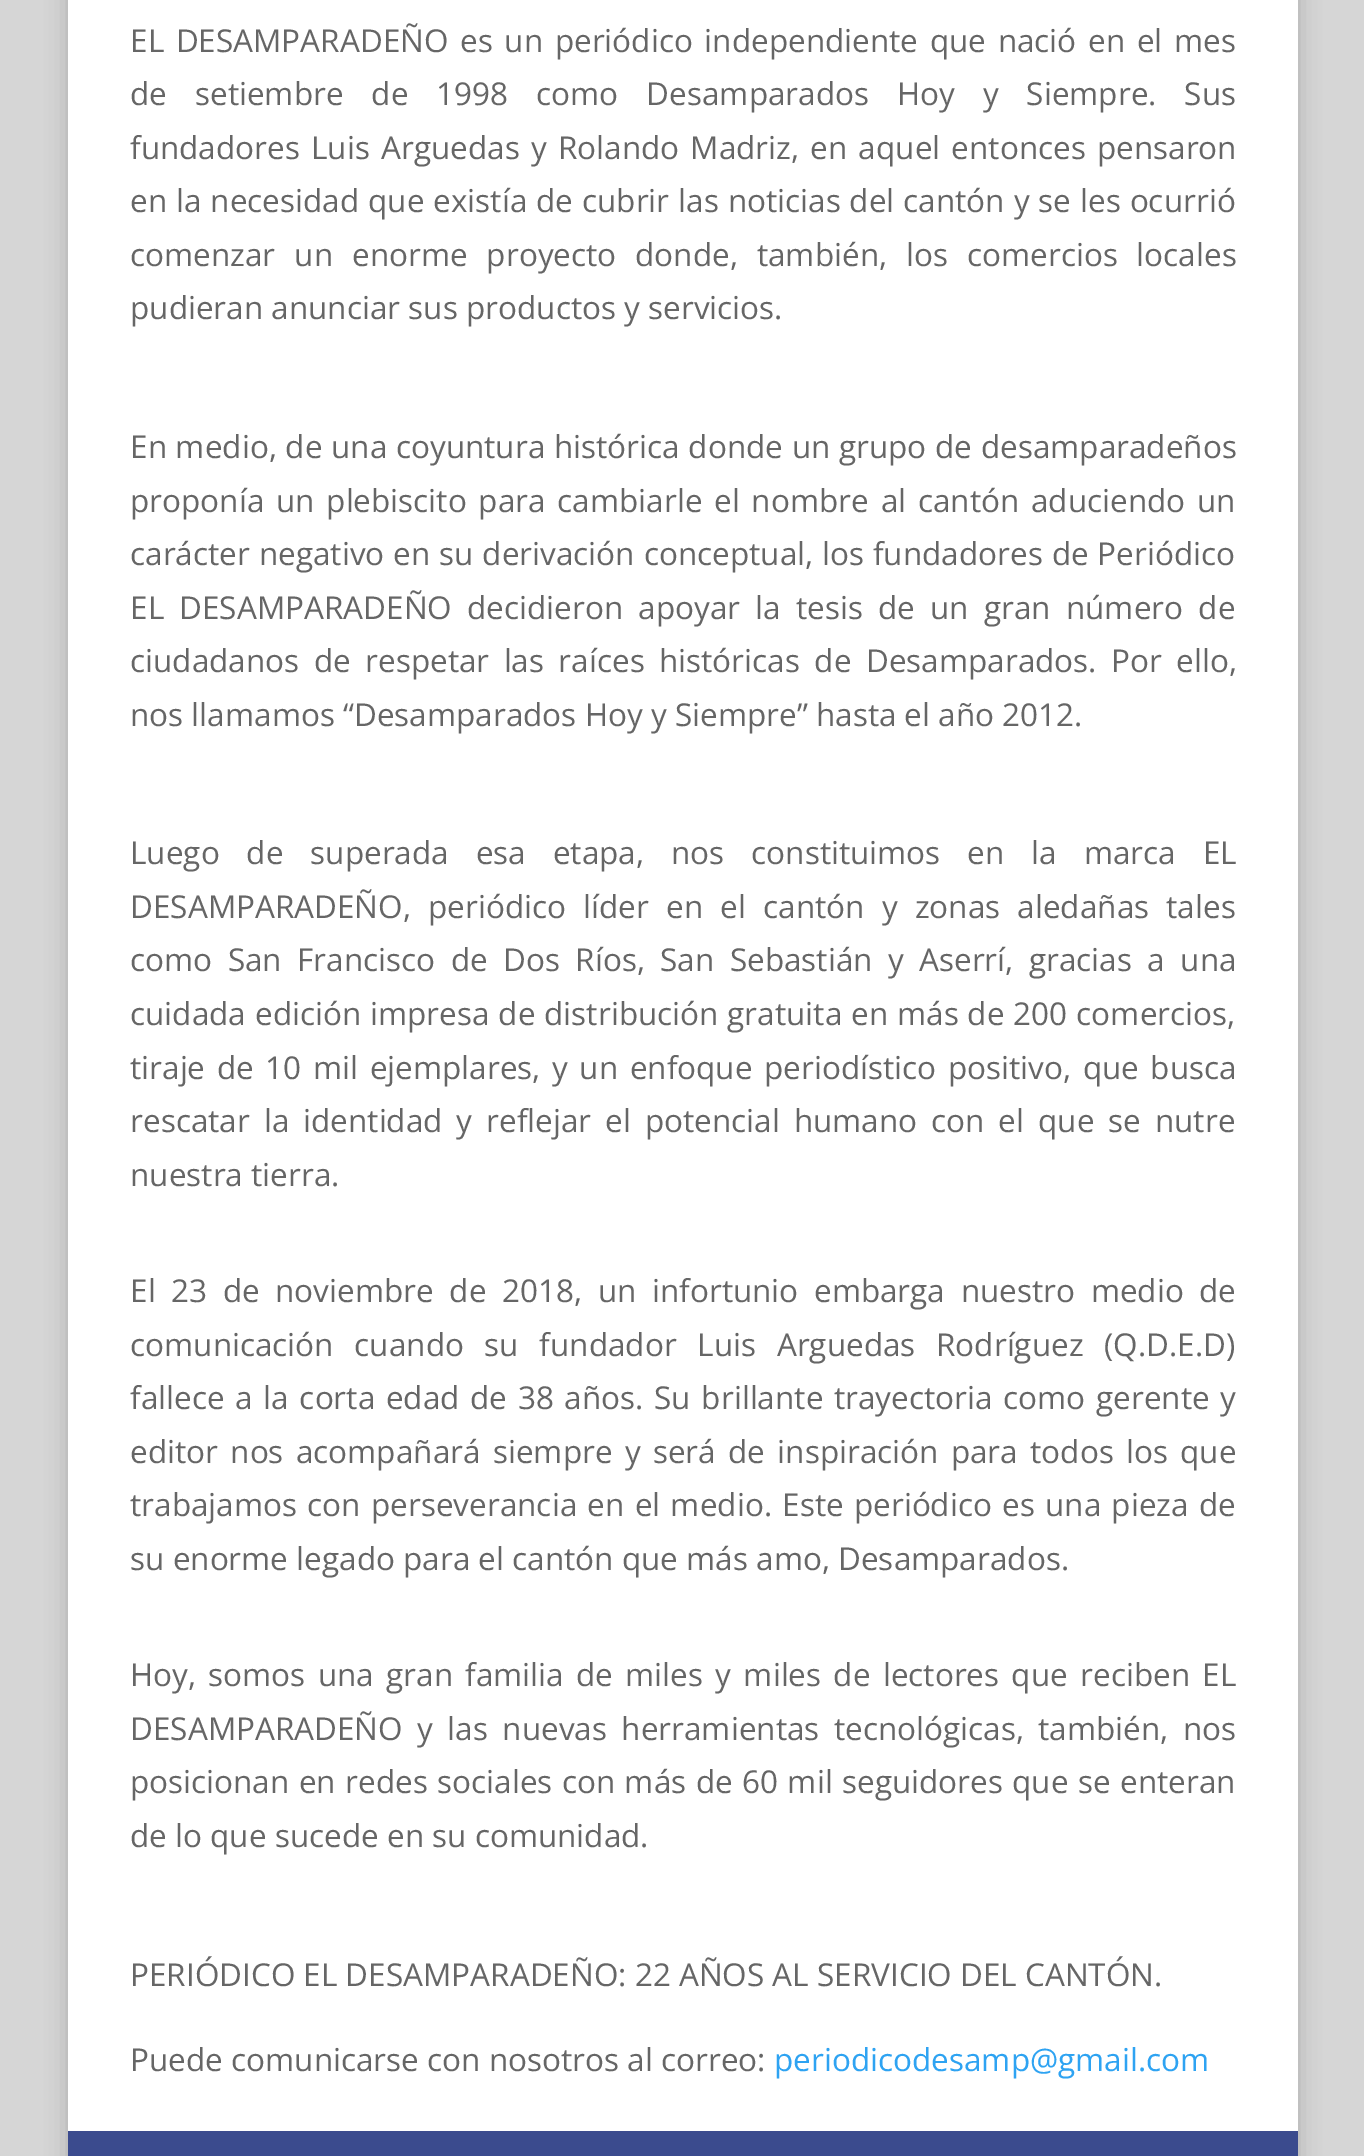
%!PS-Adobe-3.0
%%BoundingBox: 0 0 1364 2156
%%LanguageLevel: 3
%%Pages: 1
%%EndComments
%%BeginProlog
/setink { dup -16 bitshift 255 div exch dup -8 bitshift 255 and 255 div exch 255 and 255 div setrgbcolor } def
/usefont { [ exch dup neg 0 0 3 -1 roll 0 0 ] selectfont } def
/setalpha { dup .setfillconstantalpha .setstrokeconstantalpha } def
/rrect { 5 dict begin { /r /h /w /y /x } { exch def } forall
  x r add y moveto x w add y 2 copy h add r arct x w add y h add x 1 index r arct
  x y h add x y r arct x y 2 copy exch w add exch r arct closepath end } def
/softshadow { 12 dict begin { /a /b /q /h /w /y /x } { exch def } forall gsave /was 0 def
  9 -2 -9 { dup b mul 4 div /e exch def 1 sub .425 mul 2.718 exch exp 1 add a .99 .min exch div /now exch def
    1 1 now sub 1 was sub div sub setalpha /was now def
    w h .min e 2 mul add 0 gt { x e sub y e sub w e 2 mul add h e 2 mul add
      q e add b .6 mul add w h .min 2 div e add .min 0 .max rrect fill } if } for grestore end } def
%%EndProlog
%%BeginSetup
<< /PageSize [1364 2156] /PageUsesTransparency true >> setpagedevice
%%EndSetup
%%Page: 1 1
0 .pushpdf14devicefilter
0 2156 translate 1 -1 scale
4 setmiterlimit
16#D6D6D6 setink
0 0 1364 2156 rectfill
16#000000 setink
68 -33 1230 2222 0 11 0.2 softshadow
16#FFFFFF setink
68 0 1230 2131 rectfill
/OpenSans-Regular 31.5 usefont
16#666666 setink
130 52 moveto 3.5 0 32 (EL DESAMPARADEÑO es un periódico independiente que nació en el mes) widthshow
130 105 moveto 19.75 0 32 (de setiembre de 1998 como Desamparados Hoy y Siempre. Sus) widthshow
130 159 moveto 3 0 32 (fundadores Luis Arguedas y Rolando Madriz, en aquel entonces pensaron) widthshow
130 212 moveto 0.75 0 32 (en la necesidad que existía de cubrir las noticias del cantón y se les ocurrió) widthshow
130 266 moveto 10.75 0 32 (comenzar un enorme proyecto donde, también, los comercios locales) widthshow
130 319 moveto (pudieran anunciar sus productos y servicios.) show
130 458 moveto 0.5 0 32 (En medio, de una coyuntura histórica donde un grupo de desamparadeños) widthshow
130 512 moveto 3.6 0 32 (proponía un plebiscito para cambiarle el nombre al cantón aduciendo un) widthshow
130 565 moveto 0.75 0 32 (carácter negativo en su derivación conceptual, los fundadores de Periódico) widthshow
130 619 moveto 7 0 32 (EL DESAMPARADEÑO decidieron apoyar la tesis de un gran número de) widthshow
130 672 moveto 6.25 0 32 (ciudadanos de respetar las raíces históricas de Desamparados. Por ello,) widthshow
130 726 moveto (nos llamamos “Desamparados Hoy y Siempre” hasta el año 2012.) show
130 864 moveto 18.75 0 32 (Luego de superada esa etapa, nos constituimos en la marca EL) widthshow
130 918 moveto 9 0 32 (DESAMPARADEÑO, periódico líder en el cantón y zonas aledañas tales) widthshow
130 971 moveto 7.25 0 32 (como San Francisco de Dos Ríos, San Sebastián y Aserrí, gracias a una) widthshow
130 1025 moveto 0.75 0 32 (cuidada edición impresa de distribución gratuita en más de 200 comercios,) widthshow
130 1079 moveto 3.4 0 32 (tiraje de 10 mil ejemplares, y un enfoque periodístico positivo, que busca) widthshow
130 1132 moveto 5.75 0 32 (rescatar la identidad y reflejar el potencial humano con el que se nutre) widthshow
130 1186 moveto (nuestra tierra.) show
130 1302 moveto 7.4 0 32 (El 23 de noviembre de 2018, un infortunio embarga nuestro medio de) widthshow
130 1356 moveto 12.5 0 32 (comunicación cuando su fundador Luis Arguedas Rodríguez \(Q.D.E.D\)) widthshow
130 1409 moveto 2.5 0 32 (fallece a la corta edad de 38 años. Su brillante trayectoria como gerente y) widthshow
130 1463 moveto 4.1 0 32 (editor nos acompañará siempre y será de inspiración para todos los que) widthshow
130 1516 moveto 2.1 0 32 (trabajamos con perseverancia en el medio. Este periódico es una pieza de) widthshow
130 1570 moveto (su enorme legado para el cantón que más amo, Desamparados.) show
130 1686 moveto 4.1 0 32 (Hoy, somos una gran familia de miles y miles de lectores que reciben EL) widthshow
130 1740 moveto 6.25 0 32 (DESAMPARADEÑO y las nuevas herramientas tecnológicas, también, nos) widthshow
130 1793 moveto 1.25 0 32 (posicionan en redes sociales con más de 60 mil seguidores que se enteran) widthshow
[
    [(de lo que sucede en su comunidad.) 130 1847]
    [(PERIÓDICO EL DESAMPARADEÑO: 22 AÑOS AL SERVICIO DEL CANTÓN.) 130 1986]
    [(Puede comunicarse con nosotros al correo:) 130 2071]
] { aload pop moveto show } forall
16#2EA3F2 setink
774 2071 moveto (periodicodesamp@gmail.com) show
16#3B4B8E setink
68 2131 1230 25 rectfill
.poppdf14devicefilter showpage
%%EOF
